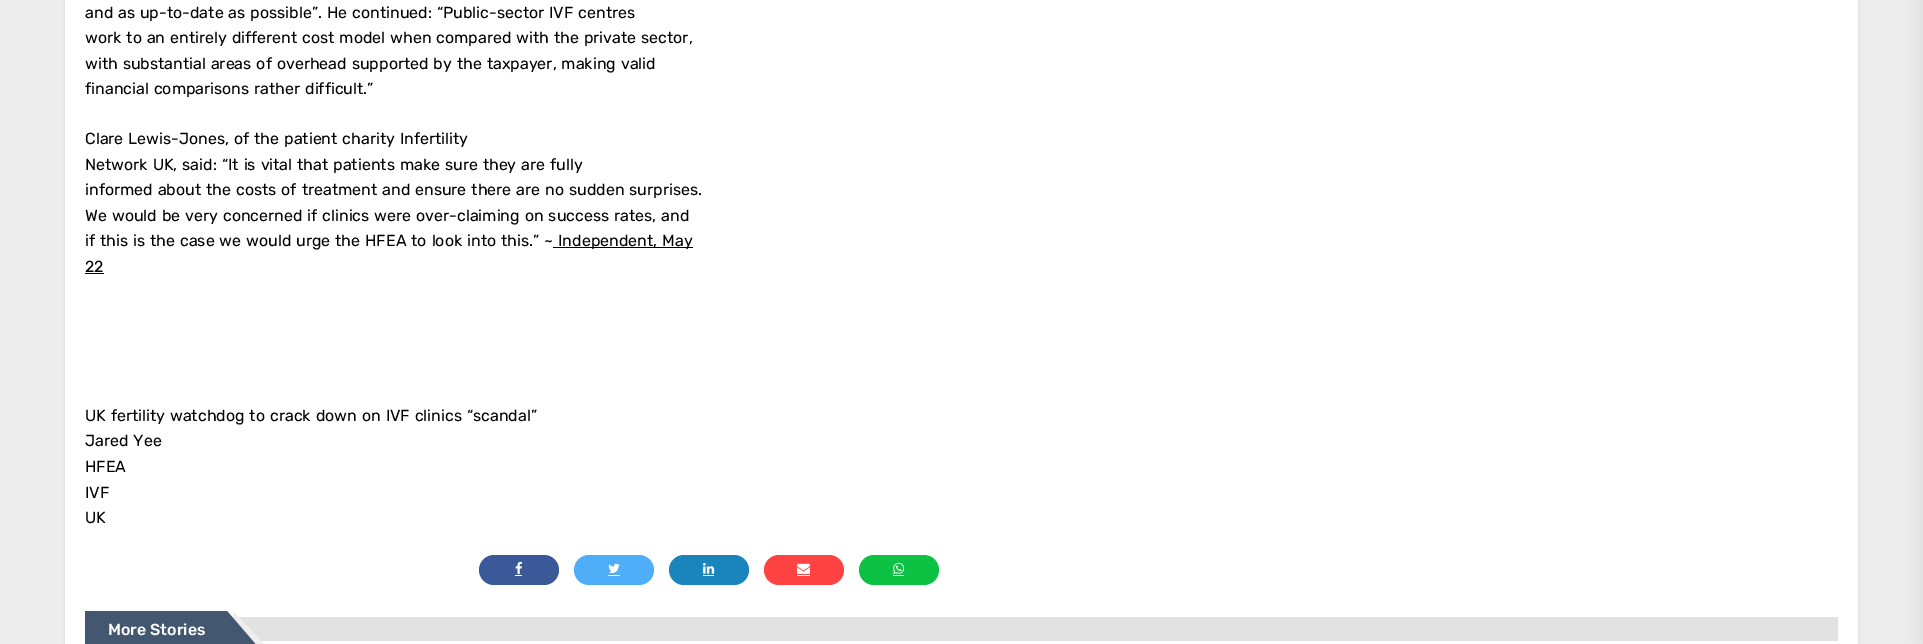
%!PS-Adobe-3.0
%%BoundingBox: 0 0 1923 644
%%LanguageLevel: 3
%%Pages: 1
%%EndComments
%%BeginProlog
/setink { dup -16 bitshift 255 div exch dup -8 bitshift 255 and 255 div exch 255 and 255 div setrgbcolor } def
/usefont { [ exch dup neg 0 0 3 -1 roll 0 0 ] selectfont } def
/setalpha { dup .setfillconstantalpha .setstrokeconstantalpha } def
/rrect { 5 dict begin { /r /h /w /y /x } { exch def } forall
  x r add y moveto x w add y 2 copy h add r arct x w add y h add x 1 index r arct
  x y h add x y r arct x y 2 copy exch w add exch r arct closepath end } def
/softshadow { 12 dict begin { /a /b /q /h /w /y /x } { exch def } forall gsave /was 0 def
  9 -2 -9 { dup b mul 4 div /e exch def 1 sub .425 mul 2.718 exch exp 1 add a .99 .min exch div /now exch def
    1 1 now sub 1 was sub div sub setalpha /was now def
    w h .min e 2 mul add 0 gt { x e sub y e sub w e 2 mul add h e 2 mul add
      q e add b .6 mul add w h .min 2 div e add .min 0 .max rrect fill } if } for grestore end } def
/drawimage { 5 dict begin { /h /w /y /x /name } { exch def } forall
  gsave x y translate w h scale
  w h 8 [w 0 0 h 0 0] name (r) file false 3 colorimage grestore end } def
%%EndProlog
%%BeginSetup
<< /PageSize [1923 644] /PageUsesTransparency true >> setpagedevice
%%EndSetup
%%Page: 1 1
0 .pushpdf14devicefilter
0 644 translate 1 -1 scale
4 setmiterlimit
16#EDEDED setink
0 0 1923 644 rectfill
16#000000 setink
65 -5 1793 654 0 1.5 0.1 softshadow
16#FFFFFF setink
65 0 1793 644 rectfill
/Rubik-Regular 16 usefont
16#000000 setink
85 18 moveto 1 0 32 (and as up-to-date as possible”. He continued: “Public-sector IVF centres) widthshow
85 43 moveto 1 0 32 (work to an entirely different cost model when compared with the private sector,) widthshow
85 69 moveto 1 0 32 (with substantial areas of overhead supported by the taxpayer, making valid) widthshow
85 94 moveto 1 0 32 (financial comparisons rather difficult.”) widthshow
85 144 moveto 1 0 32 (Clare Lewis-Jones, of the patient charity Infertility) widthshow
85 170 moveto 1 0 32 (Network UK, said: “It is vital that patients make sure they are fully) widthshow
85 195 moveto 1 0 32 (informed about the costs of treatment and ensure there are no sudden surprises.) widthshow
85 221 moveto 1 0 32 (We would be very concerned if clinics were over-claiming on success rates, and) widthshow
85 246 moveto 1 0 32 (if this is the case we would urge the HFEA to look into this.” ~) widthshow
553 247 140 1 rectfill
558 246 moveto 1 0 32 (Independent, May) widthshow
85 272 moveto (22) show
85 273 19 1 rectfill
85 421 moveto 1 0 32 (UK fertility watchdog to crack down on IVF clinics “scandal”) widthshow
85 446 moveto 1 0 32 (Jared Yee) widthshow
[
    [(HFEA) 85 472]
    [(IVF) 85 498]
    [(UK) 85 523]
] { aload pop moveto show } forall
16#3B5998 setink
479 555 80 30 15 rrect fill
(img1.raw) 515 561 7 13 drawimage
16#FFFFFF setink
515 575 7 1 rectfill
16#4EAEF8 setink
574 555 80 30 15 rrect fill
(img2.raw) 608 563 12 11 drawimage
16#FFFFFF setink
608 575 12 1 rectfill
16#1A85BC setink
669 555 80 30 15 rrect fill
(img3.raw) 703 563 12 11 drawimage
16#FFFFFF setink
703 575 11 1 rectfill
16#FF4242 setink
764 555 80 30 15 rrect fill
(img4.raw) 797 563 13 11 drawimage
16#FFFFFF setink
797 575 13 1 rectfill
16#0DC143 setink
859 555 80 30 15 rrect fill
(img5.raw) 893 562 12 12 drawimage
[
    [893 575 11 1 16#FFFFFF]
    [85 611 142 33 16#435870]
    [232 617 1606 24 16#E2E2E2]
] { aload pop setink rectfill } forall
16#EEEEEE setink
233 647 moveto 233 611 lineto 267 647 lineto closepath fill
16#435870 setink
227 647 moveto 227 611 lineto 258 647 lineto closepath fill
/Rubik-Medium 16 usefont
16#FFFFFF setink
108 635 moveto (More Stories) show
16#000000 setink
1923 0 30 644 0 10 0.1 softshadow
.poppdf14devicefilter showpage
%%EOF
